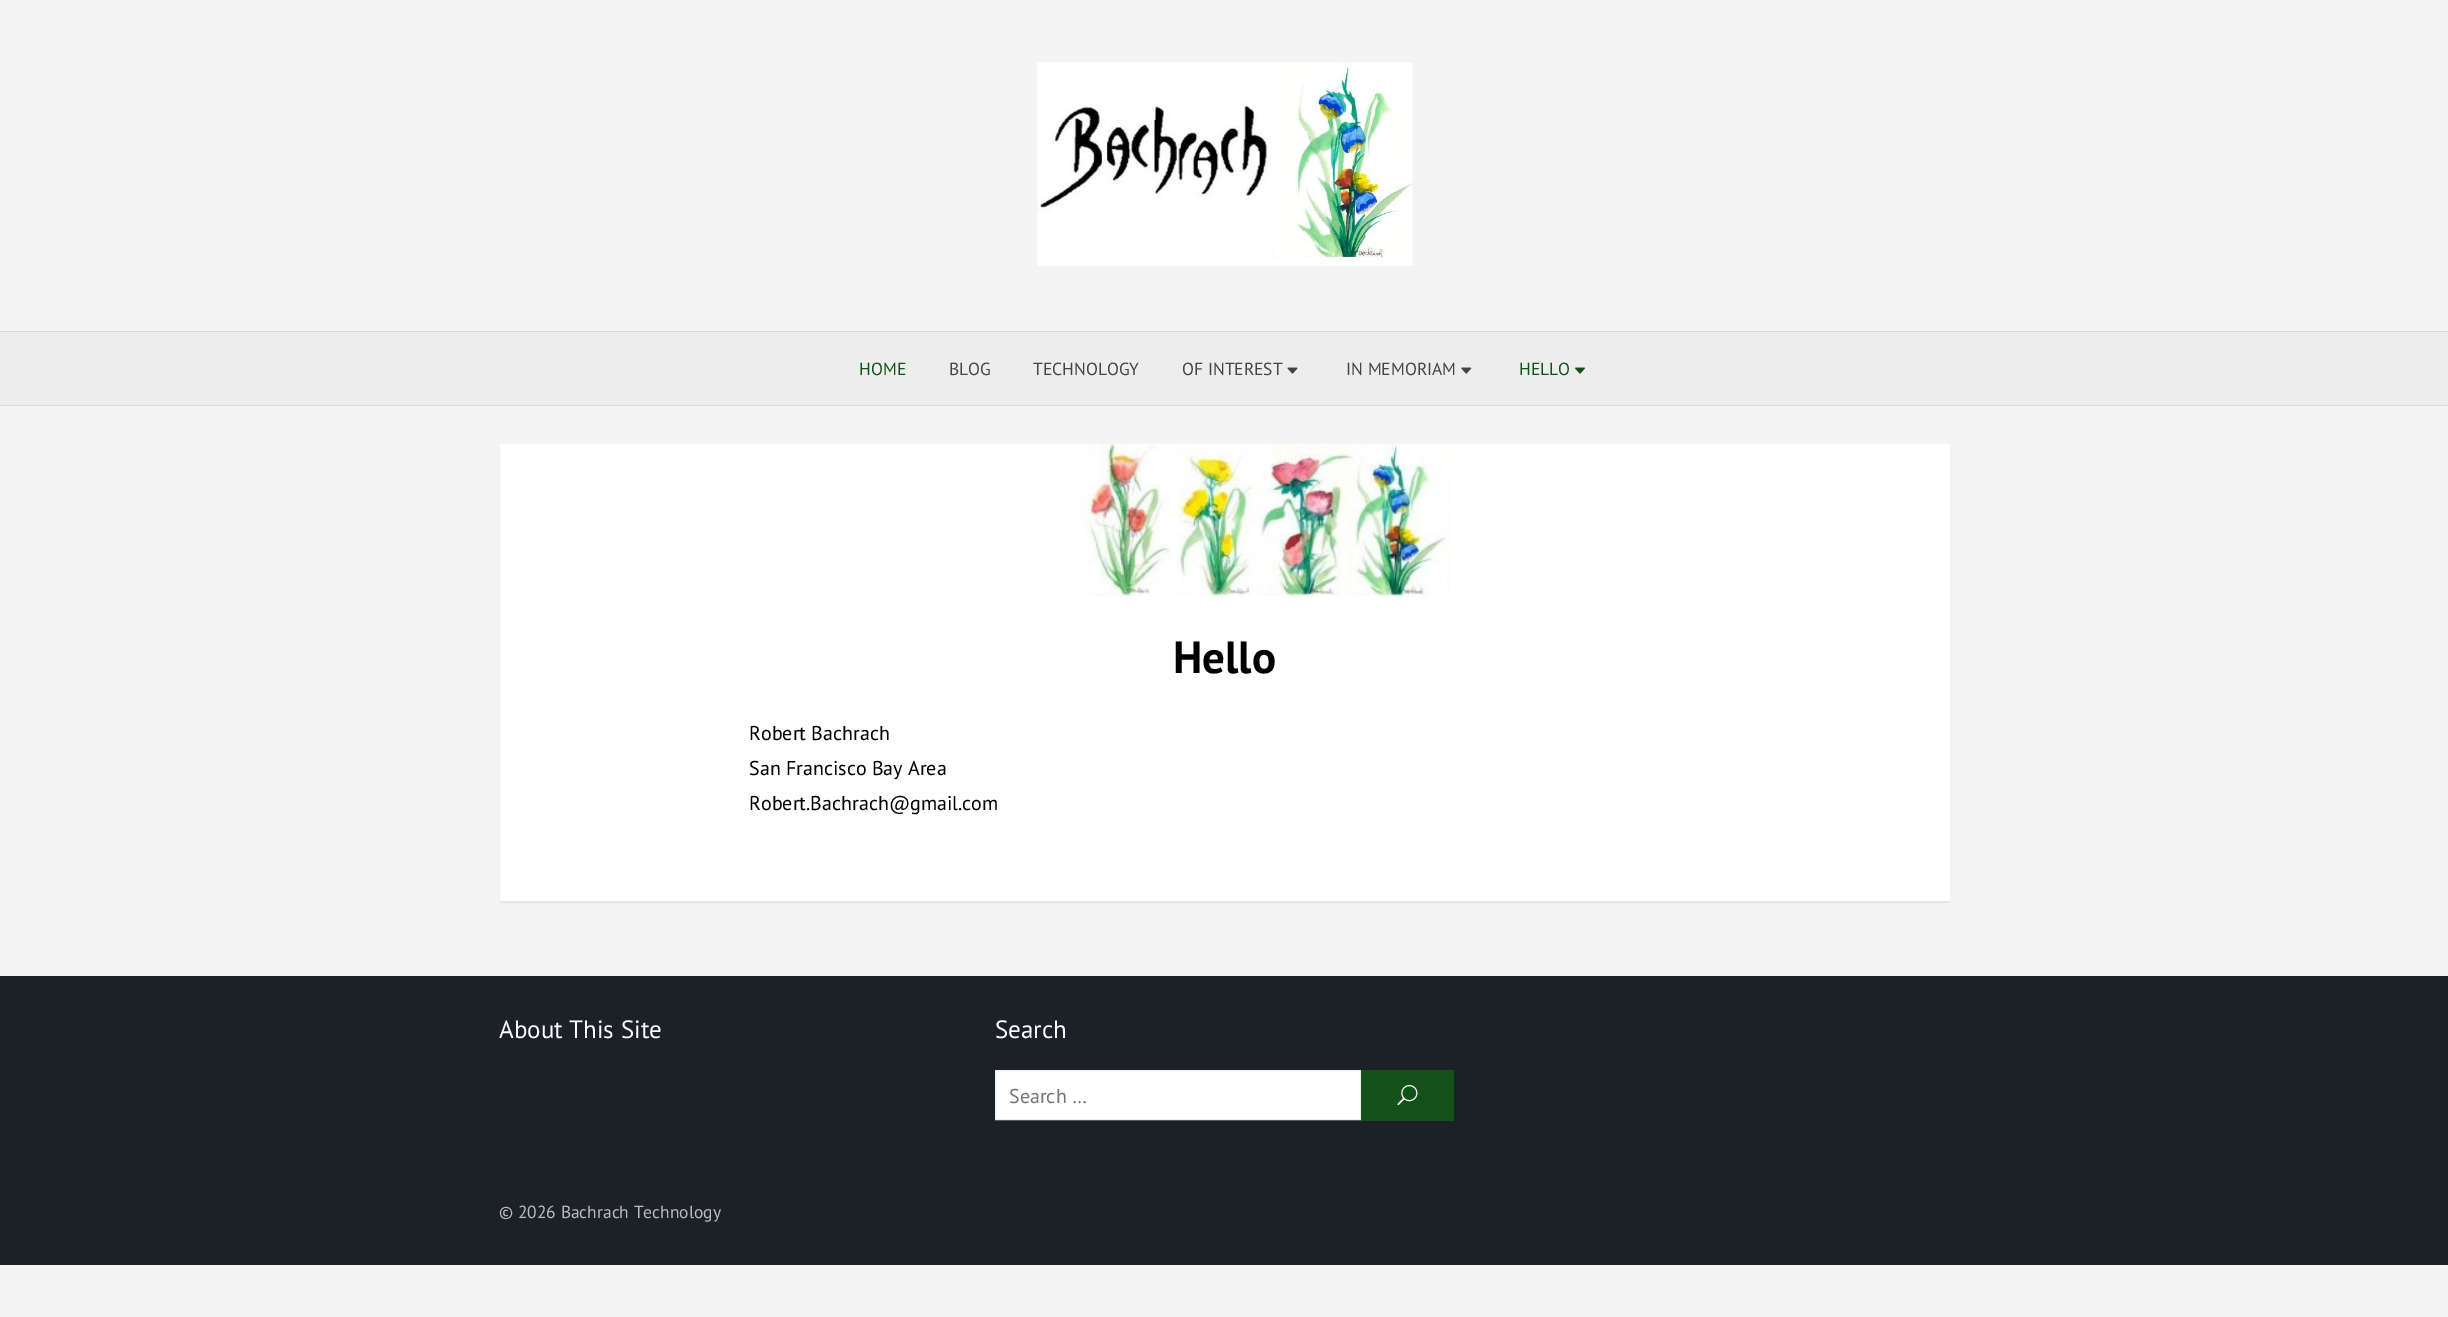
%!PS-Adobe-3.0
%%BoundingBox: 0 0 2448 1317
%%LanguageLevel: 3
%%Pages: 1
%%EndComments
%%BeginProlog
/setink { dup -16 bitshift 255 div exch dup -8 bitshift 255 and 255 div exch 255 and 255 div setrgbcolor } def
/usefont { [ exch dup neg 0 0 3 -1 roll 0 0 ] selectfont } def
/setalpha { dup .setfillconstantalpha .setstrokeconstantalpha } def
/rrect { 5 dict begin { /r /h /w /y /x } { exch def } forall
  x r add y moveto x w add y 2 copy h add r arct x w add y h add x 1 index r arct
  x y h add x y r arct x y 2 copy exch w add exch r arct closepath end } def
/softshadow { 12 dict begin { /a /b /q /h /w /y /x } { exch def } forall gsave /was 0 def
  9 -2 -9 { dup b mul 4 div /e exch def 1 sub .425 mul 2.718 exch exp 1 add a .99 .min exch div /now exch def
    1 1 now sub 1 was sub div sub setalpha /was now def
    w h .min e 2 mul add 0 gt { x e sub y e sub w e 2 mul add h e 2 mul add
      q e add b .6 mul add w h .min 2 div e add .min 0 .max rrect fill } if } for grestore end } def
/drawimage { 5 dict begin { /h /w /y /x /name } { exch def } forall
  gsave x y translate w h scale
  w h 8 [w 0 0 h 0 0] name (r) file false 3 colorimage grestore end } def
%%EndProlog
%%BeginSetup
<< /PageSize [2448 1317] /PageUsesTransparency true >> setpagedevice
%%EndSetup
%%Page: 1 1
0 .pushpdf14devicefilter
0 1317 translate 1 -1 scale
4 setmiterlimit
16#F4F4F4 setink
0 0 2448 1317 rectfill
(img1.raw) 1037 62 376 204 drawimage
[
    [0 332 2448 73 16#EDEDED]
    [0 331 2448 1 16#DADADA]
    [0 405 2448 1 16#DADADA]
] { aload pop setink rectfill } forall
/PTSans-Regular 17.5 usefont
16#13511B setink
859 375 moveto (HOME) show
16#444444 setink
[
    [(BLOG) 949 375]
    [(TECHNOLOGY) 1033 375]
    [(OF INTEREST) 1182 375]
] { aload pop moveto show } forall
(img2.raw) 1287 367 11 7 drawimage
1346 375 moveto (IN MEMORIAM) show
(img3.raw) 1461 367 11 7 drawimage
16#13511B setink
1519 375 moveto (HELLO) show
(img4.raw) 1575 367 10 7 drawimage
16#000000 setink
500 445 1450 458 0 0.5 0.05 softshadow
16#FFFFFF setink
500 444 1450 457 rectfill
(img5.raw) 1080 443 370 154 drawimage
/PTSans-Bold 45 usefont
16#000000 setink
1173 673 moveto (Hello) show
/PTSans-Regular 20 usefont
[
    [(Robert Bachrach) 749 740]
    [(San Francisco Bay Area) 749 775]
    [(Robert.Bachrach@gmail.com) 749 810]
] { aload pop moveto show } forall
16#1B2126 setink
0 976 2448 289 rectfill
/PTSans-Regular 25 usefont
16#FFFFFF setink
499 1038 moveto (About This Site) show
995 1038 moveto (Search) show
995.5 1070.5 moveto 1360.5 1070.5 lineto 1360.5 1119.5 lineto 995.5 1119.5 lineto closepath gsave fill grestore
16#EEEEEE setink
stroke
/PTSans-Regular 20 usefont
16#757575 setink
1009 1103 moveto (Search …) show
16#13511B setink
1361 1070 93 51 rectfill
(img6.raw) 1397 1085 21 20 drawimage
/PTSans-Regular 17.5 usefont
16#BBBCBE setink
499 1218 moveto (© 2026 Bachrach Technology) show
.poppdf14devicefilter showpage
%%EOF
